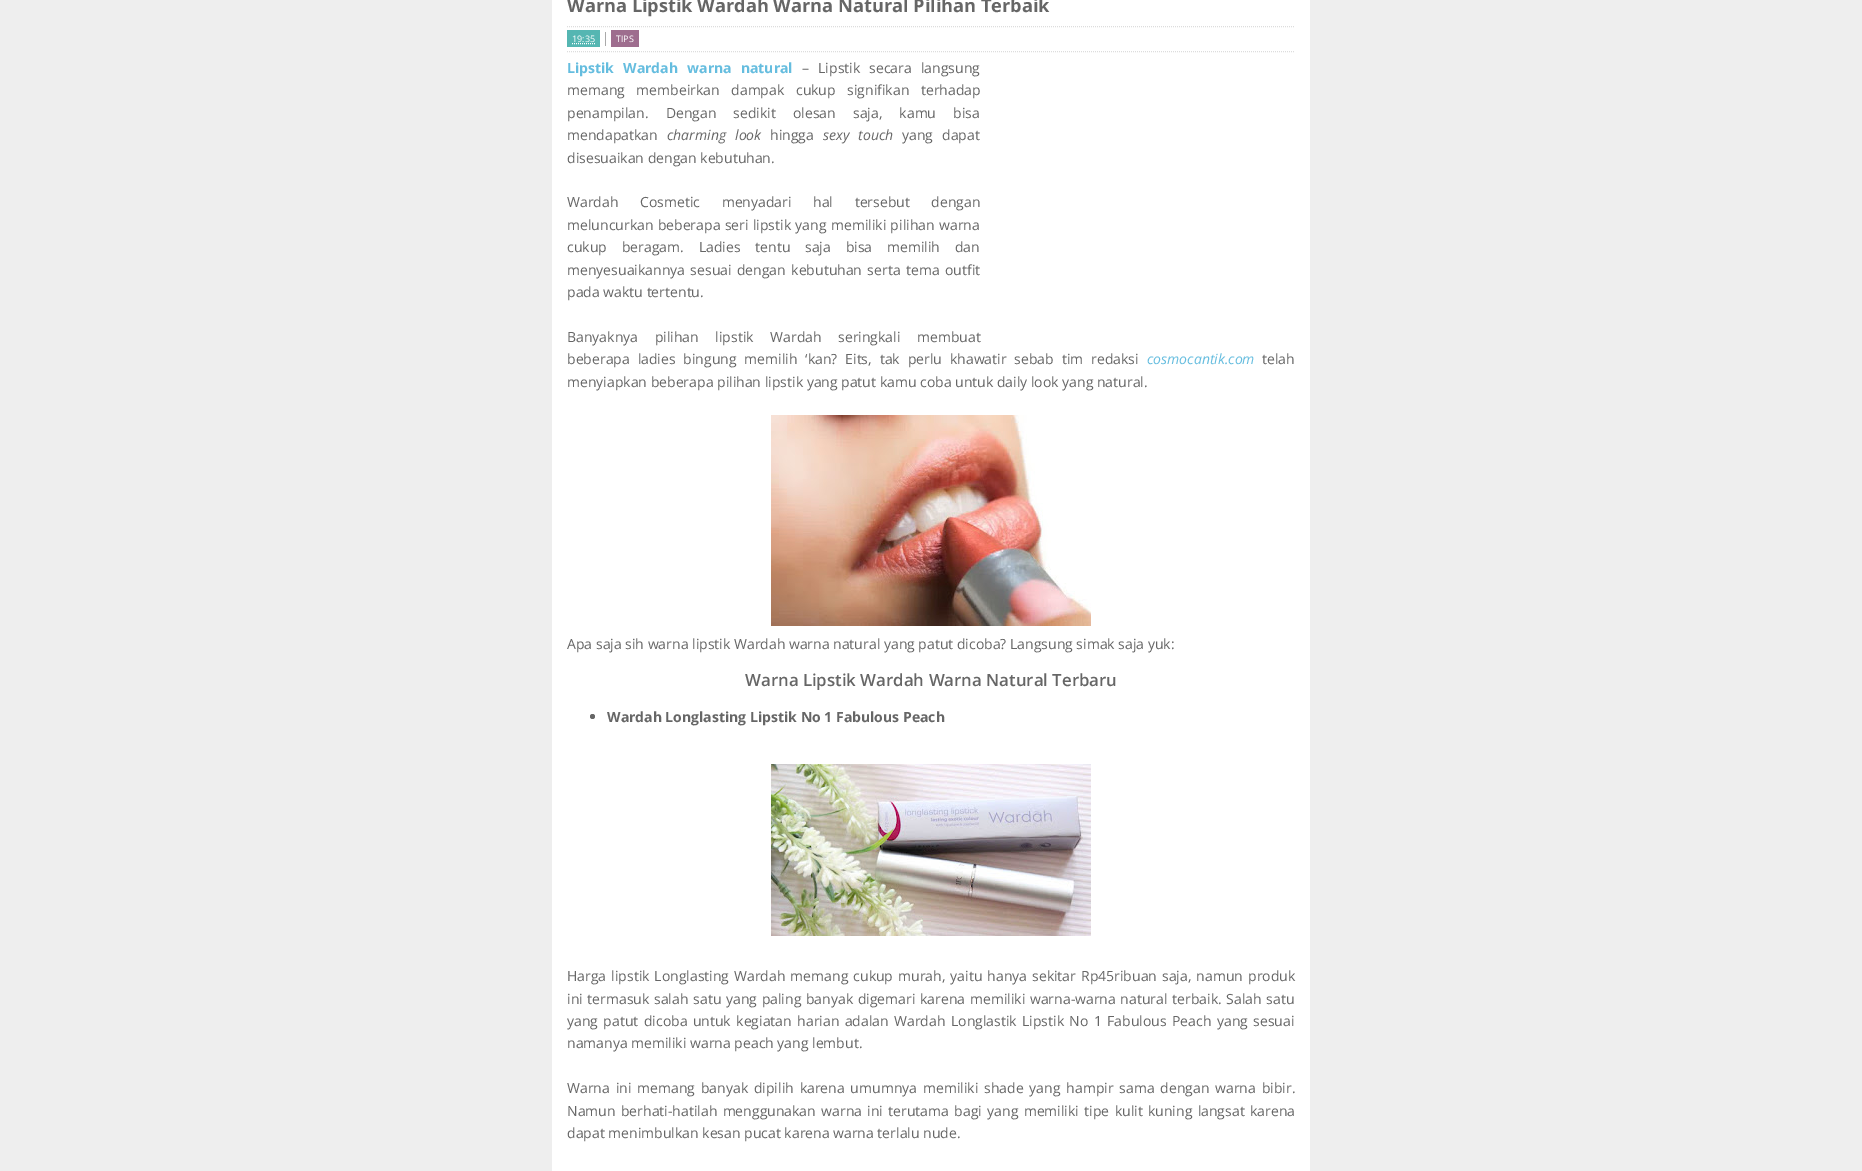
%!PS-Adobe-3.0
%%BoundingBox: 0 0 1862 1171
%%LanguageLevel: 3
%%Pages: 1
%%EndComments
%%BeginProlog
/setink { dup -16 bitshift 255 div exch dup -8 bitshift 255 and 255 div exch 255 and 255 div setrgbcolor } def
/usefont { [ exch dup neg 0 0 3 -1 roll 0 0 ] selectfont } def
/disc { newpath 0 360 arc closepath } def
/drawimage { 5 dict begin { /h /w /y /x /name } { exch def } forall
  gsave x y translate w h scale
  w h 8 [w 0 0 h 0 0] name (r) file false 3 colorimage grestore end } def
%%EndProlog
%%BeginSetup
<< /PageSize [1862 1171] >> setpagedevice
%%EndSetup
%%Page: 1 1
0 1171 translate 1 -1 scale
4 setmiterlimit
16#EEEEEE setink
0 0 1862 1171 rectfill
16#FFFFFF setink
552 0 758 1171 rectfill
/OpenSans-Bold 18.2 usefont
16#666666 setink
567 12 moveto (Warna Lipstik Wardah Warna Natural Pilihan Terbaik) show
16#DDDDDD setink
[1 1] 0 setdash
567 26.5 moveto 1295 26.5 lineto stroke
567 51.5 moveto 1295 51.5 lineto stroke
16#AAAAAA setink
605 32 1 14 rectfill
16#55B6B2 setink
567 30 33 17 rectfill
/OpenSans-Regular 9 usefont
16#FFFFFF setink
572 42 moveto (19:35) show
572 43.5 moveto 595 43.5 lineto stroke
16#9E6D8E setink
611 30 28 17 rectfill
16#FFFFFF setink
616 42 moveto (TIPS) show
/OpenSans-Bold 14 usefont
16#65BDDF setink
567 73 moveto 5.5 0 32 (Lipstik Wardah warna natural) widthshow
/OpenSans-Regular 14 usefont
16#666666 setink
802 73 moveto 5.5 0 32 (– Lipstik secara langsung) widthshow
567 95 moveto 8 0 32 (memang membeirkan dampak cukup signifikan terhadap) widthshow
567 118 moveto 13.5 0 32 (penampilan. Dengan sedikit olesan saja, kamu bisa) widthshow
567 140 moveto (mendapatkan) show
/OpenSans-Italic 14 usefont
667 140 moveto 5.5 0 32 (charming look) widthshow
/OpenSans-Regular 14 usefont
770 140 moveto (hingga) show
/OpenSans-Italic 14 usefont
823 140 moveto 5.5 0 32 (sexy touch) widthshow
/OpenSans-Regular 14 usefont
902 140 moveto 5.5 0 32 (yang dapat) widthshow
567 163 moveto (disesuaikan dengan kebutuhan.) show
567 207 moveto 18 0 32 (Wardah Cosmetic menyadari hal tersebut dengan) widthshow
567 230 moveto 0.75 0 32 (meluncurkan beberapa seri lipstik yang memiliki pilihan warna) widthshow
567 252 moveto 11.25 0 32 (cukup beragam. Ladies tentu saja bisa memilih dan) widthshow
567 275 moveto 1.75 0 32 (menyesuaikannya sesuai dengan kebutuhan serta tema outfit) widthshow
567 297 moveto (pada waktu tertentu.) show
567 342 moveto 13 0 32 (Banyaknya pilihan lipstik Wardah seringkali membuat) widthshow
567 364 moveto 4.25 0 32 (beberapa ladies bingung memilih ‘kan? Eits, tak perlu khawatir sebab tim redaksi) widthshow
/OpenSans-Italic 14 usefont
16#65BDDF setink
1147 364 moveto (cosmocantik.com) show
/OpenSans-Regular 14 usefont
16#666666 setink
1262 364 moveto (telah) show
567 387 moveto (menyiapkan beberapa pilihan lipstik yang patut kamu coba untuk daily look yang natural.) show
(img1.raw) 771 415 320 211 drawimage
567 649 moveto (Apa saja sih warna lipstik Wardah warna natural yang patut dicoba? Langsung simak saja yuk:) show
/OpenSans-SemiBold 16.8 usefont
745 686 moveto (Warna Lipstik Wardah Warna Natural Terbaru) show
592.5 716.5 2.5 disc fill
/OpenSans-Bold 14 usefont
607 722 moveto (Wardah Longlasting Lipstik No 1 Fabulous Peach) show
(img2.raw) 771 764 320 172 drawimage
/OpenSans-Regular 14 usefont
567 981 moveto 1.4 0 32 (Harga lipstik Longlasting Wardah memang cukup murah, yaitu hanya sekitar Rp45ribuan saja, namun produk) widthshow
567 1004 moveto 1.1 0 32 (ini termasuk salah satu yang paling banyak digemari karena memiliki warna-warna natural terbaik. Salah satu) widthshow
567 1026 moveto 1.8 0 32 (yang patut dicoba untuk kegiatan harian adalan Wardah Longlastik Lipstik No 1 Fabulous Peach yang sesuai) widthshow
567 1048 moveto (namanya memiliki warna peach yang lembut.) show
567 1093 moveto 2.25 0 32 (Warna ini memang banyak dipilih karena umumnya memiliki shade yang hampir sama dengan warna bibir.) widthshow
567 1116 moveto 1.75 0 32 (Namun berhati-hatilah menggunakan warna ini terutama bagi yang memiliki tipe kulit kuning langsat karena) widthshow
567 1138 moveto (dapat menimbulkan kesan pucat karena warna terlalu nude.) show
showpage
%%EOF
